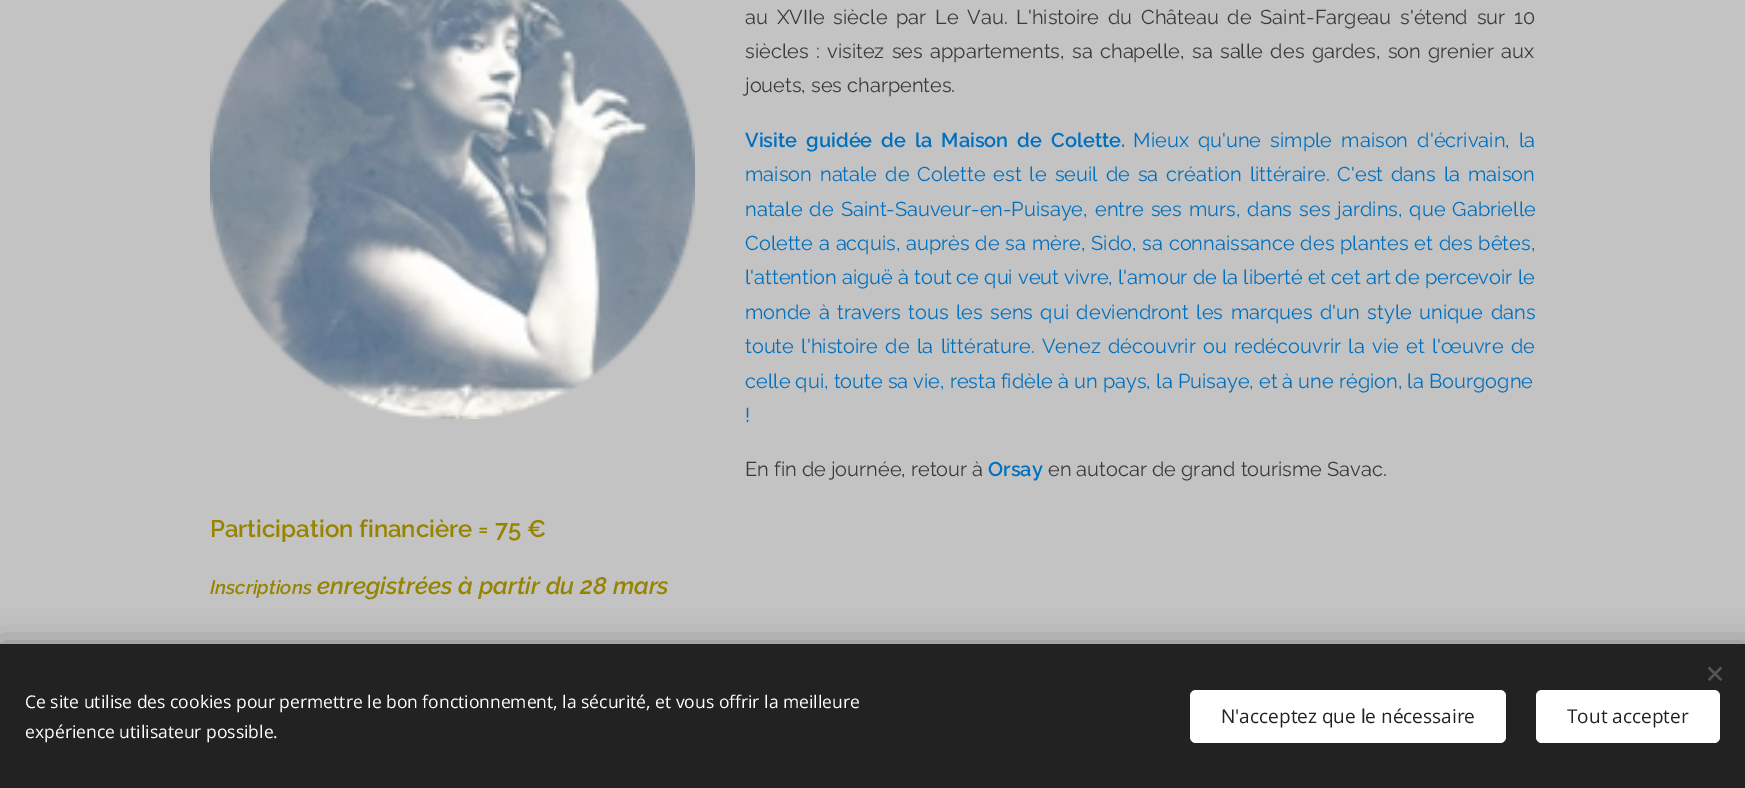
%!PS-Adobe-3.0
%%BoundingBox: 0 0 1745 788
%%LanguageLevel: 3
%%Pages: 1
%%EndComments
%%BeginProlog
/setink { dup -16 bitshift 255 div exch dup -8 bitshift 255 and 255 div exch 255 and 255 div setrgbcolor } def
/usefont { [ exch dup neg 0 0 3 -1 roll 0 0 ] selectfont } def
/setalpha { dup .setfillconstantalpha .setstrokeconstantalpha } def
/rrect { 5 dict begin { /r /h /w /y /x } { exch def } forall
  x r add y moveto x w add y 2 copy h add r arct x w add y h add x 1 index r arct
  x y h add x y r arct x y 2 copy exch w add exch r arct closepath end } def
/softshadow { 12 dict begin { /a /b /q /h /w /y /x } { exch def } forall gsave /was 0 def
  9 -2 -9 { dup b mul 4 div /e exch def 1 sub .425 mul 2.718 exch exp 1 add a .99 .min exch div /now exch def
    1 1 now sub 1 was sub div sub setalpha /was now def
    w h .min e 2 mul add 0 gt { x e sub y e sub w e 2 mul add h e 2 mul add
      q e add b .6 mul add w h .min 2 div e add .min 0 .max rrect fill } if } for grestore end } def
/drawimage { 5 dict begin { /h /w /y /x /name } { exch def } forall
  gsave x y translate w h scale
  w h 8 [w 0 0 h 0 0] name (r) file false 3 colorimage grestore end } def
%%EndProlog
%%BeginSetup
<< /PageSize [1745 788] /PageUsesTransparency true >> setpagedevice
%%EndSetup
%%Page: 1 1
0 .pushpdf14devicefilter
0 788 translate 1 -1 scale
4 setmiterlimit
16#C3C3C3 setink
0 0 1745 788 rectfill
/Raleway-Regular 20 usefont
16#3B3B3B setink
745 24 moveto 3.75 0 32 (au XVIIe siècle par Le Vau.) widthshow
1016 24 moveto 3.75 0 32 (L'histoire du Château de Saint-Fargeau s'étend sur 10) widthshow
745 58 moveto 2.25 0 32 (siècles : visitez ses appartements, sa chapelle, sa salle des gardes, son grenier aux) widthshow
745 92 moveto (jouets, ses charpentes.) show
/Raleway-SemiBold 20 usefont
16#0070C0 setink
745 147 moveto 4 0 32 (Visite guidée de la Maison de Colette.) widthshow
/Raleway-Regular 20 usefont
1133 147 moveto 4 0 32 (Mieux qu'une simple maison d'écrivain, la) widthshow
745 181 moveto 2.9 0 32 (maison natale de Colette est le seuil de sa création littéraire. C'est dans la maison) widthshow
745 216 moveto 2 0 32 (natale de Saint-Sauveur-en-Puisaye, entre ses murs, dans ses jardins, que Gabrielle) widthshow
745 250 moveto 0.75 0 32 (Colette a acquis, auprès de sa mère, Sido, sa connaissance des plantes et des bêtes,) widthshow
745 284 moveto (l'attention aiguë à tout ce qui veut vivre, l'amour de la liberté et cet art de percevoir le) show
745 319 moveto 2.4 0 32 (monde à travers tous les sens qui deviendront les marques d'un style unique dans) widthshow
745 353 moveto 2.25 0 32 (toute l'histoire de la littérature. Venez découvrir ou redécouvrir la vie et l'œuvre de) widthshow
745 388 moveto (celle qui, toute sa vie, resta fidèle à un pays, la Puisaye, et à une région, la Bourgogne) show
745 422 moveto (!) show
16#3B3B3B setink
745 476 moveto (En fin de journée, retour à) show
/Raleway-SemiBold 20 usefont
16#0070C0 setink
988 476 moveto (Orsay) show
/Raleway-Regular 20 usefont
16#3B3B3B setink
1048 476 moveto (en autocar de grand tourisme Savac.) show
(img1.raw) 210 0 485 419 drawimage
/Raleway-SemiBold 24 usefont
16#968400 setink
210 537 moveto (Participation financière = 75 €) show
/Raleway-SemiBoldItalic 19.25 usefont
210 594 moveto (Inscriptions) show
/Raleway-SemiBoldItalic 24 usefont
317 594 moveto (enregistrées à partir du 28 mars) show
16#000000 setink
0 644 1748 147 0 15.5 0.33 softshadow
16#222222 setink
0 644 1745 144 rectfill
16#555555 setink
1708 679 moveto 1720.5 666.5 lineto 1722 668.5 lineto 1709.5 681 lineto closepath fill
1709.5 666.5 moveto 1722 679 lineto 1720.5 681 lineto 1708 668.5 lineto closepath fill
/OpenSans-Regular 17.5 usefont
16#FFFFFF setink
25 708 moveto (Ce site utilise des cookies pour permettre le bon fonctionnement, la sécurité, et vous offrir la meilleure) show
25 738 moveto (expérience utilisateur possible.) show
1190 690 316 53 6 rrect fill
/OpenSans-Regular 19 usefont
16#222222 setink
1221 723 moveto (N'acceptez que le nécessaire) show
16#FFFFFF setink
1536 690 184 53 6 rrect fill
16#222222 setink
1567 723 moveto (Tout accepter) show
.poppdf14devicefilter showpage
%%EOF
